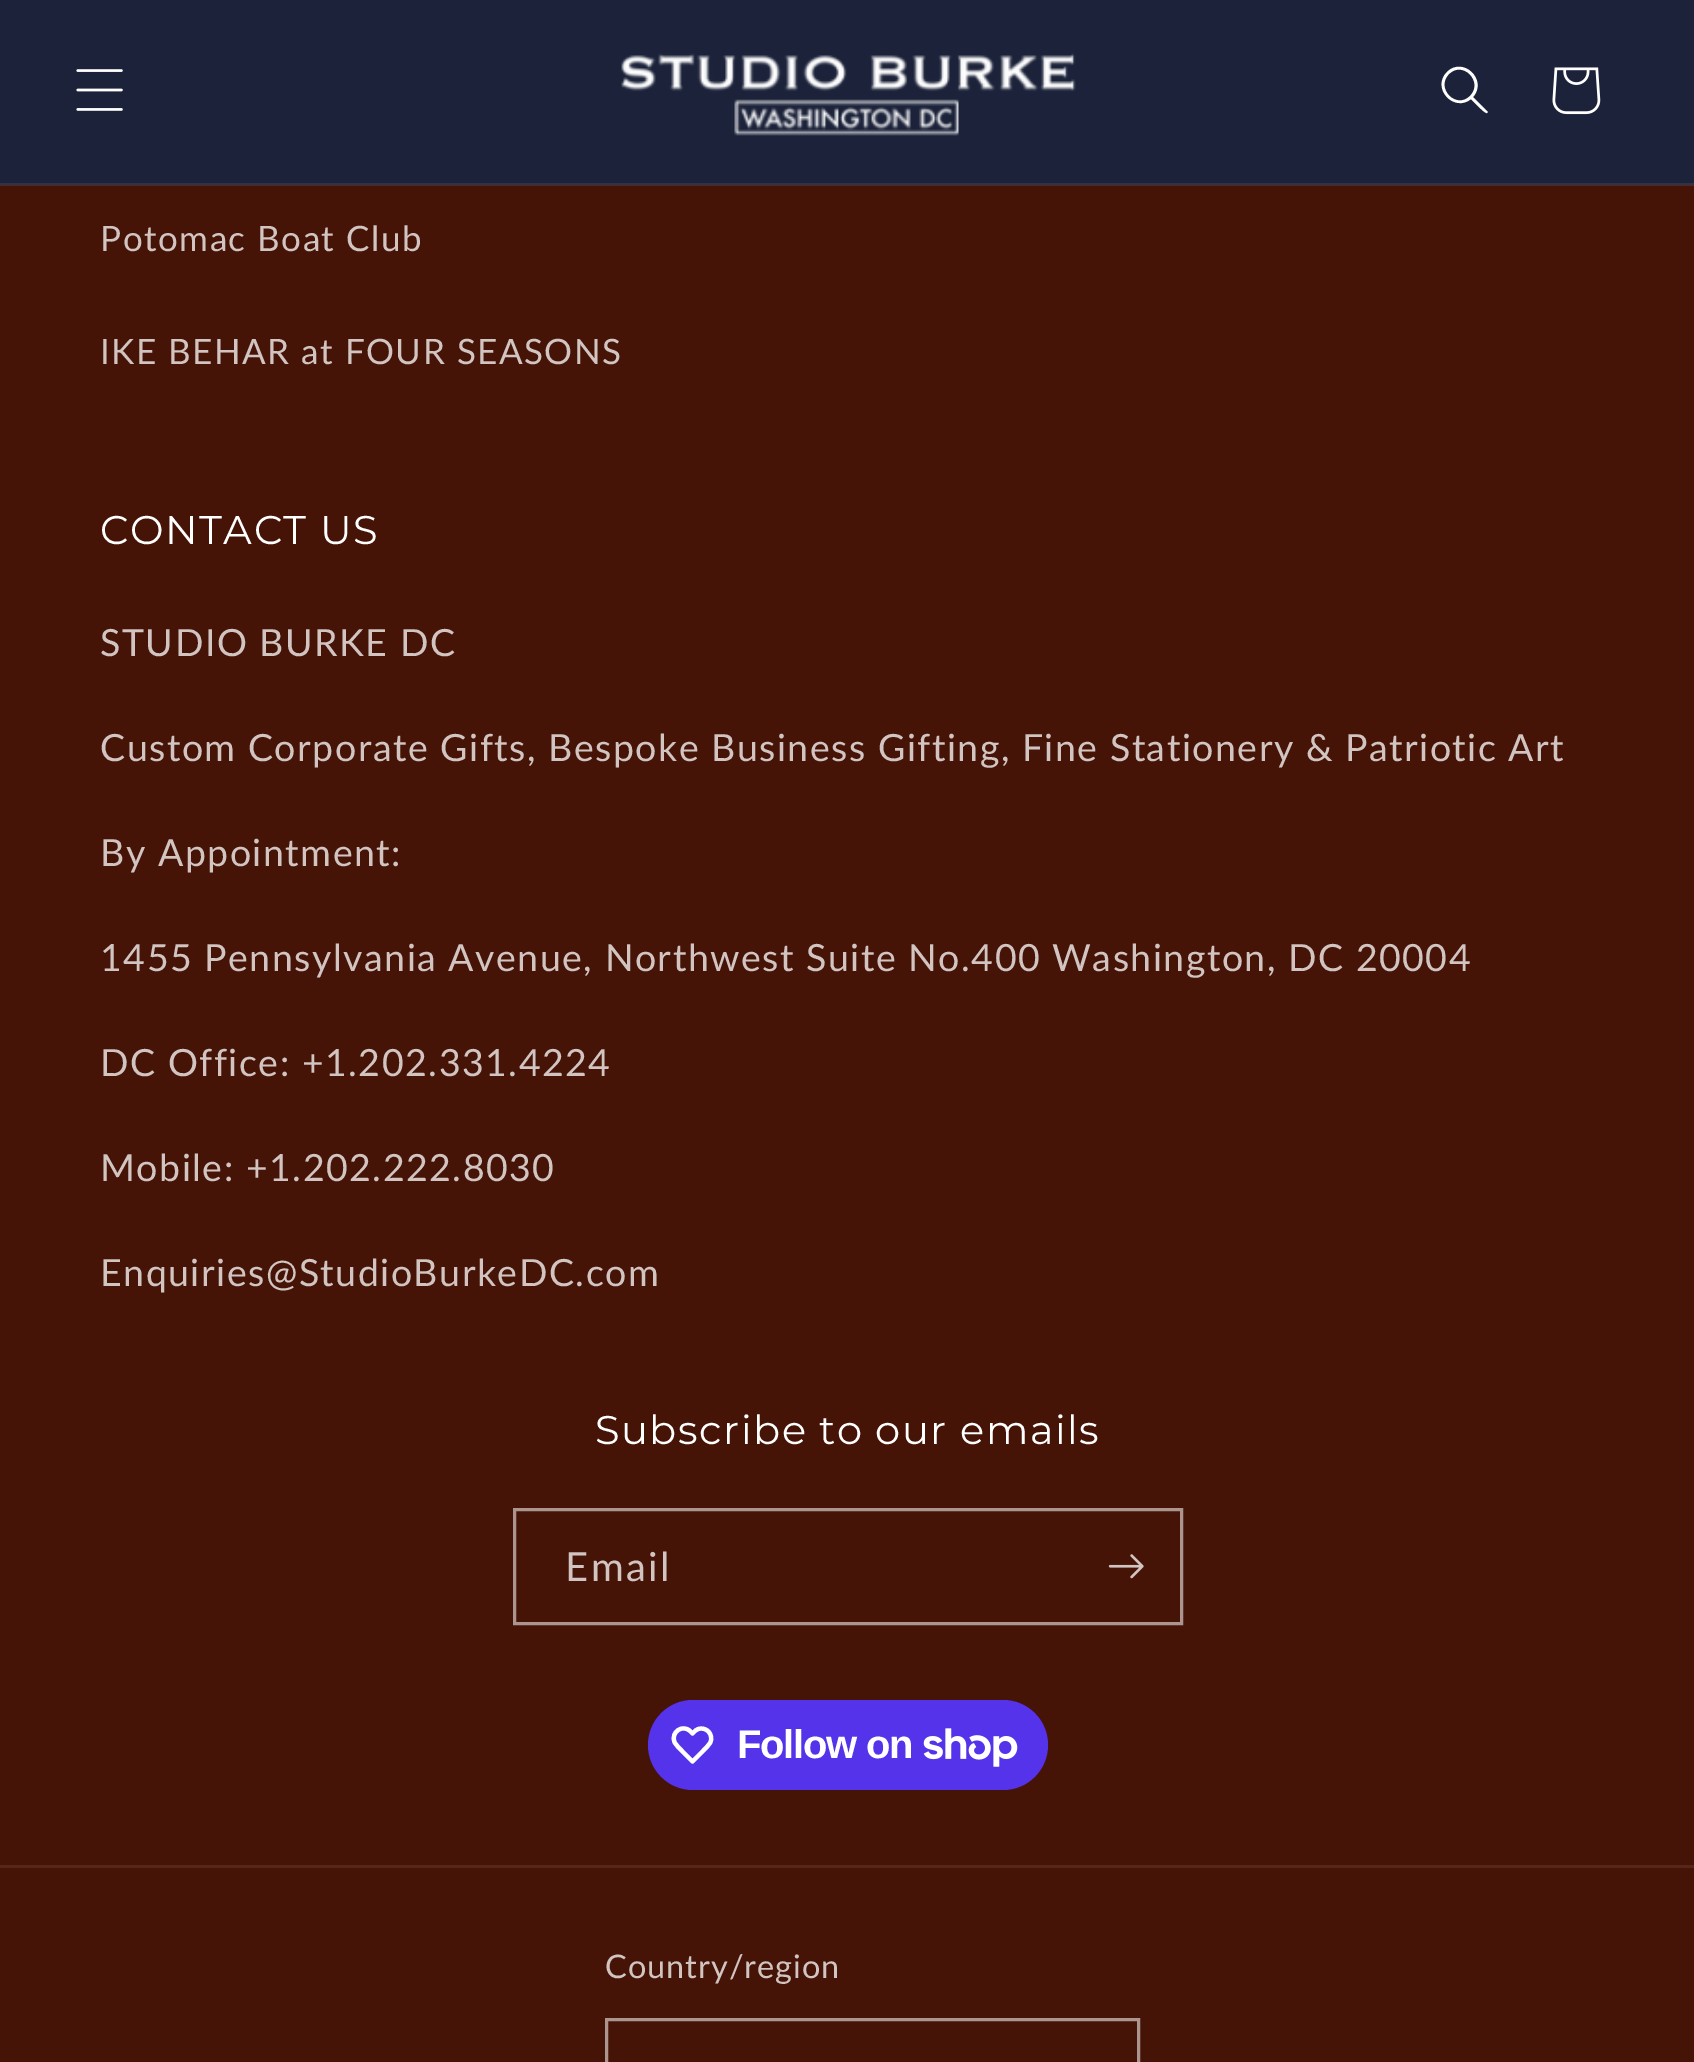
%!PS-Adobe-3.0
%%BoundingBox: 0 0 1694 2062
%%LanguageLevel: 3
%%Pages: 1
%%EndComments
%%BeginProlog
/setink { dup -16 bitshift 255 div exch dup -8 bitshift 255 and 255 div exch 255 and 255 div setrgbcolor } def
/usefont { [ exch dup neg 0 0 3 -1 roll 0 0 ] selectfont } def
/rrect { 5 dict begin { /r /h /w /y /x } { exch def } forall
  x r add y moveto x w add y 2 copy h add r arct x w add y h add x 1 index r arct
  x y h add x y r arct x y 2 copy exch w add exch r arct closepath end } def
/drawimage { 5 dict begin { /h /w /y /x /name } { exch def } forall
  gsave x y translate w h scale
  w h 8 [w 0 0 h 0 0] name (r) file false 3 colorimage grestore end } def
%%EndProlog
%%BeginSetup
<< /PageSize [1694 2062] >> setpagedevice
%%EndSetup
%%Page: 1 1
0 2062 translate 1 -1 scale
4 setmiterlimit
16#461307 setink
0 0 1694 2062 rectfill
16#1B2239 setink
0 0 1694 183 rectfill
16#2D3449 setink
0 183 1694 2 rectfill
(img1.raw) 76 69 47 42 drawimage
(img2.raw) 621 53 455 83 drawimage
16#FFFFFF setink
1470 96 moveto 1456 110 1435 88 1449 74 curveto 1463 60 1484 82 1470 96 curveto closepath 1471 99 moveto 1454 113 1431 88 1447 72 curveto 1463 56 1488 80 1473 97 curveto 1488 112 lineto 1487 113 lineto 1485 114 1473 101 1471 99 curveto closepath eofill
(img3.raw) 1552 67 49 48 drawimage
16#55261B setink
0 185 1694 1 rectfill
/Lato-Regular 35 usefont
16#D1C4C1 setink
100 251 moveto 1.5 0 (Potomac Boat Club) ashow
100 364 moveto 1.5 0 (IKE BEHAR at FOUR SEASONS) ashow
/Montserrat-Regular 40 usefont
16#FFFFFF setink
100 544 moveto 1.5 0 (CONTACT US) ashow
/Lato-Regular 37.5 usefont
16#D1C4C1 setink
100 656 moveto 1.5 0 (STUDIO BURKE DC) ashow
100 761 moveto 1.5 0 (Custom Corporate Gifts, Bespoke Business Gifting, Fine Stationery & Patriotic Art) ashow
100 866 moveto 1.5 0 (By Appointment:) ashow
100 971 moveto 1.5 0 (1455 Pennsylvania Avenue, Northwest Suite No.400 Washington, DC 20004) ashow
100 1076 moveto 1.5 0 (DC Office: +1.202.331.4224) ashow
100 1181 moveto 1.5 0 (Mobile: +1.202.222.8030) ashow
100 1286 moveto 1.5 0 (Enquiries@StudioBurkeDC.com) ashow
/Montserrat-Regular 40 usefont
16#FFFFFF setink
595 1444 moveto 1.5 0 (Subscribe to our emails) ashow
16#AC958F setink
3 setlinewidth
514.5 1509.5 667 114 rectstroke
/Lato-Regular 40 usefont
16#D1C4C1 setink
565 1581 moveto 2.5 0 (Email) ashow
(img4.raw) 1108 1554 36 25 drawimage
16#5433EB setink
648 1700 400 90 45 rrect fill
16#FFFFFF setink
4.2 setlinewidth
1 setlinejoin
690.5 1731.5 moveto 692.5 1733.5 lineto 694.5 1731.5 696 1729.5 698.5 1729 curveto 706.5 1726.5 713.5 1734.5 710.5 1742 curveto 709 1745.5 705.5 1748 703 1751 curveto 692.5 1761.5 lineto 682 1751 lineto 679.5 1748 676 1745.5 674.5 1742 curveto 670.5 1732 683 1723.5 690.5 1731.5 curveto closepath stroke
/LiberationSans-Bold 40 usefont
737 1758 moveto -1.25 0 (Follow on) ashow
(img5.raw) 923 1728 95 39 drawimage
16#55261B setink
0 1865 1694 3 rectfill
/Lato-Regular 32.5 usefont
16#D1C4C1 setink
605 1978 moveto 1 0 (Country/region) ashow
16#AC958F setink
3 setlinewidth
0 setlinejoin
606.5 2019.5 532 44 rectstroke
showpage
%%EOF
